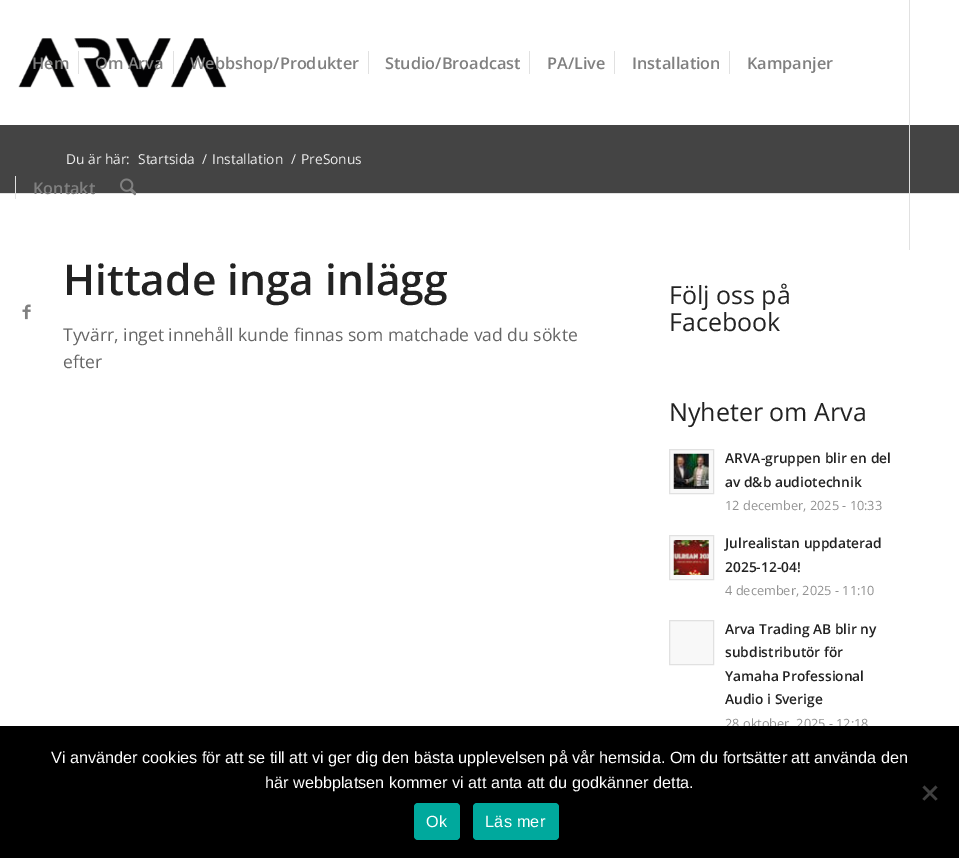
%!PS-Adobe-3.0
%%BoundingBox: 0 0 959 858
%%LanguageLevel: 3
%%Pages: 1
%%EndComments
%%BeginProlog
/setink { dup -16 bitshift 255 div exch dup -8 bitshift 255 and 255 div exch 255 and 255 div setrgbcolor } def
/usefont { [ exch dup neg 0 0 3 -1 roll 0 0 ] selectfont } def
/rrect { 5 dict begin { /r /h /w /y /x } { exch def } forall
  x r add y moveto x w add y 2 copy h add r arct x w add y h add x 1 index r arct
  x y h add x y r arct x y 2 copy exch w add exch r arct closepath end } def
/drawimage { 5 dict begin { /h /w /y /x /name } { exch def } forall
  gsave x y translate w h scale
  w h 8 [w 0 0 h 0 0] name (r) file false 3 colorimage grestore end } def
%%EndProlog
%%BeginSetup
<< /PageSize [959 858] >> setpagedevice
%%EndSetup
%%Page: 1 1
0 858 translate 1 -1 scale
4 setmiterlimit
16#FFFFFF setink
0 0 959 858 rectfill
(img1.raw) 18 38 209 50 drawimage
[
    [0 125 959 68 16#444444]
    [0 193 959 1 16#E1E1E1]
    [909 0 1 250 16#E1E1E1]
] { aload pop setink rectfill } forall
/OpenSans-SemiBold 16.25 usefont
16#808080 setink
32 69 moveto (Hem) show
95 69 moveto (Om Arva) show
16#E1E1E1 setink
78 51 1 23 rectfill
16#808080 setink
190 69 moveto (Webbshop/Produkter) show
16#E1E1E1 setink
173 51 1 23 rectfill
16#808080 setink
385 69 moveto (Studio/Broadcast) show
16#E1E1E1 setink
368 51 1 23 rectfill
16#808080 setink
547 69 moveto (PA/Live) show
16#E1E1E1 setink
529 51 1 23 rectfill
16#808080 setink
632 69 moveto (Installation) show
16#E1E1E1 setink
614 51 1 23 rectfill
16#808080 setink
747 69 moveto (Kampanjer) show
16#E1E1E1 setink
729 51 1 23 rectfill
16#808080 setink
33 194 moveto (Kontakt) show
16#E1E1E1 setink
15 176 1 23 rectfill
(img2.raw) 120 178 16 18 drawimage
(img3.raw) 22 304 9 16 drawimage
/OpenSans-Regular 13.75 usefont
16#EEEEEE setink
[
    [(Du är här:) 66 164]
    [(Startsida) 138 164]
    [(/) 202 164]
    [(Installation) 212 164]
    [(/) 291 164]
    [(PreSonus) 301 164]
] { aload pop moveto show } forall
/OpenSans-SemiBold 42.5 usefont
16#222222 setink
63 295 moveto (Hittade inga inlägg) show
/OpenSans-Regular 17.5 usefont
16#666666 setink
63 341 moveto (Tyvärr, inget innehåll kunde finnas som matchade vad du sökte) show
63 368 moveto (efter) show
/OpenSans-Regular 25 usefont
16#222222 setink
[
    [(Följ oss på) 669 304]
    [(Facebook) 669 331]
    [(Nyheter om Arva) 669 421]
] { aload pop moveto show } forall
16#F8F8F8 setink
669.5 449.5 moveto 713.5 449.5 lineto 713.5 493.5 lineto 669.5 493.5 lineto closepath gsave fill grestore
16#E1E1E1 setink
stroke
(img4.raw) 673 453 36 36 drawimage
/OpenSans-SemiBold 13.75 usefont
16#222222 setink
725 463 moveto (ARVA-gruppen blir en del) show
725 487 moveto (av d&b audiotechnik) show
/OpenSans-Regular 12.75 usefont
16#919191 setink
725 510 moveto (12 december, 2025 - 10:33) show
16#F8F8F8 setink
669.5 535.5 moveto 713.5 535.5 lineto 713.5 579.5 lineto 669.5 579.5 lineto closepath gsave fill grestore
16#E1E1E1 setink
stroke
(img5.raw) 673 540 36 35 drawimage
/OpenSans-SemiBold 13.75 usefont
16#222222 setink
725 548 moveto (Julrealistan uppdaterad) show
725 572 moveto (2025-12-04!) show
/OpenSans-Regular 12.75 usefont
16#919191 setink
725 595 moveto (4 december, 2025 - 11:10) show
16#F8F8F8 setink
669.5 620.5 moveto 713.5 620.5 lineto 713.5 664.5 lineto 669.5 664.5 lineto closepath gsave fill grestore
16#E1E1E1 setink
stroke
/OpenSans-SemiBold 13.75 usefont
16#222222 setink
[
    [(Arva Trading AB blir ny) 725 634]
    [(subdistributör för) 725 657]
    [(Yamaha Professional) 725 681]
    [(Audio i Sverige) 725 704]
] { aload pop moveto show } forall
/OpenSans-Regular 12.75 usefont
16#919191 setink
725 728 moveto (28 oktober, 2025 - 12:18) show
16#000000 setink
0 726 959 132 rectfill
/LiberationSans-Regular 16.25 usefont
16#FFFFFF setink
51 763 moveto (Vi använder cookies för att se till att vi ger dig den bästa upplevelsen på vår hemsida. Om du fortsätter att använda den) show
265 788 moveto (här webbplatsen kommer vi att anta att du godkänner detta.) show
16#404040 setink
935.5 785.5 moveto 937.5 787.5 lineto 924.5 800.5 lineto 922.5 799 lineto closepath fill
922.5 787.5 moveto 924.5 785.5 lineto 937.5 799 lineto 935.5 800.5 lineto closepath fill
16#00A99D setink
414 803 46 37 4 rrect fill
16#FFFFFF setink
426 827 moveto 0.25 0 (Ok) ashow
16#00A99D setink
473 803 86 37 4 rrect fill
16#FFFFFF setink
485 827 moveto 0.25 0 (Läs mer) ashow
showpage
%%EOF
